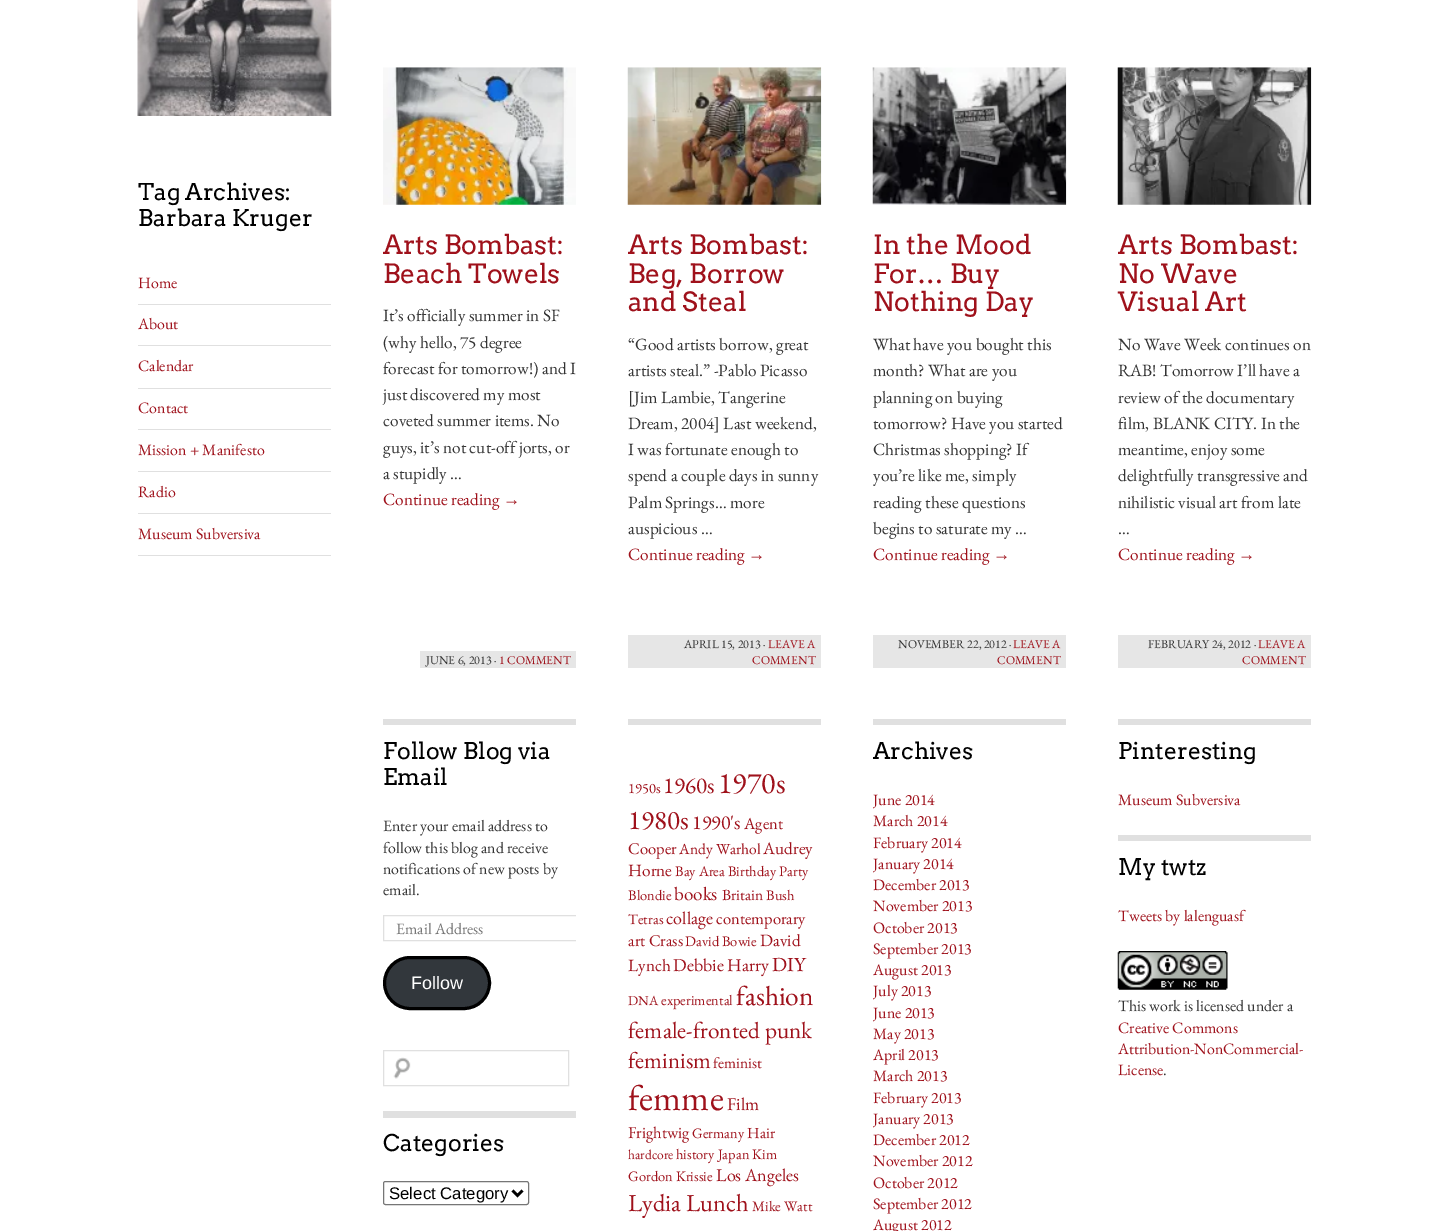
%!PS-Adobe-3.0
%%BoundingBox: 0 0 1450 1231
%%LanguageLevel: 3
%%Pages: 1
%%EndComments
%%BeginProlog
/setink { dup -16 bitshift 255 div exch dup -8 bitshift 255 and 255 div exch 255 and 255 div setrgbcolor } def
/usefont { [ exch dup neg 0 0 3 -1 roll 0 0 ] selectfont } def
/rrect { 5 dict begin { /r /h /w /y /x } { exch def } forall
  x r add y moveto x w add y 2 copy h add r arct x w add y h add x 1 index r arct
  x y h add x y r arct x y 2 copy exch w add exch r arct closepath end } def
/drawimage { 5 dict begin { /h /w /y /x /name } { exch def } forall
  gsave x y translate w h scale
  w h 8 [w 0 0 h 0 0] name (r) file false 3 colorimage grestore end } def
%%EndProlog
%%BeginSetup
<< /PageSize [1450 1231] >> setpagedevice
%%EndSetup
%%Page: 1 1
0 1231 translate 1 -1 scale
4 setmiterlimit
16#FFFFFF setink
0 0 1450 1231 rectfill
(img1.raw) 137 0 195 116 drawimage
/Arvo-Regular 23 usefont
16#000000 setink
138 200 moveto (Tag Archives:) show
138 226 moveto (Barbara Kruger) show
16#E0E0E0 setink
138 304 193 1 rectfill
/EBGaramond-Regular 15.9 usefont
16#9F111B setink
138 288 moveto (Home) show
16#E0E0E0 setink
138 345 193 1 rectfill
16#9F111B setink
138 329 moveto (About) show
16#E0E0E0 setink
138 388 193 1 rectfill
16#9F111B setink
138 371 moveto (Calendar) show
16#E0E0E0 setink
138 429 193 1 rectfill
16#9F111B setink
138 413 moveto (Contact) show
16#E0E0E0 setink
138 471 193 1 rectfill
16#9F111B setink
138 455 moveto (Mission + Manifesto) show
16#E0E0E0 setink
138 513 193 1 rectfill
16#9F111B setink
138 497 moveto (Radio) show
16#E0E0E0 setink
138 555 193 1 rectfill
16#9F111B setink
138 539 moveto (Museum Subversiva) show
(img2.raw) 383 67 193 138 drawimage
/Arvo-Regular 26.5 usefont
383 254 moveto (Arts Bombast:) show
383 283 moveto (Beach Towels) show
/EBGaramond-Regular 17.25 usefont
16#333333 setink
[
    [(It’s officially summer in SF) 383 321]
    [(\(why hello, 75 degree) 383 348]
    [(forecast for tomorrow!\) and I) 383 374]
    [(just discovered my most) 383 400]
    [(coveted summer items. No) 383 426]
    [(guys, it’s not cut-off jorts, or) 383 453]
    [(a stupidly …) 383 479]
] { aload pop moveto show } forall
16#9F111B setink
383 505 moveto (Continue reading) show
/LiberationSerif-Regular 17.25 usefont
503 505 moveto (→) show
16#E6E6E6 setink
420 651 156 17 rectfill
/EBGaramond-Regular 12 usefont
16#333333 setink
426 664 moveto (JUNE 6, 2013 ·) show
16#9F111B setink
499 664 moveto (1 COMMENT) show
(img3.raw) 627 67 195 138 drawimage
/Arvo-Regular 26.5 usefont
[
    [(Arts Bombast:) 628 254]
    [(Beg, Borrow) 628 283]
    [(and Steal) 628 311]
] { aload pop moveto show } forall
/EBGaramond-Regular 17.25 usefont
16#333333 setink
[
    [(“Good artists borrow, great) 628 350]
    [(artists steal.” -Pablo Picasso) 628 376]
    [([Jim Lambie, Tangerine) 628 403]
    [(Dream, 2004] Last weekend,) 628 429]
    [(I was fortunate enough to) 628 455]
    [(spend a couple days in sunny) 628 481]
    [(Palm Springs… more) 628 508]
    [(auspicious …) 628 534]
] { aload pop moveto show } forall
16#9F111B setink
628 560 moveto (Continue reading) show
/LiberationSerif-Regular 17.25 usefont
748 560 moveto (→) show
16#E6E6E6 setink
628 635 193 33 rectfill
/EBGaramond-Regular 12 usefont
16#333333 setink
684 648 moveto (APRIL 15, 2013 ·) show
16#9F111B setink
768 648 moveto (LEAVE A) show
752 664 moveto (COMMENT) show
(img4.raw) 872 67 195 138 drawimage
/Arvo-Regular 26.5 usefont
[
    [(In the Mood) 873 254]
    [(For… Buy) 873 283]
    [(Nothing Day) 873 311]
] { aload pop moveto show } forall
/EBGaramond-Regular 17.25 usefont
16#333333 setink
[
    [(What have you bought this) 873 350]
    [(month? What are you) 873 376]
    [(planning on buying) 873 403]
    [(tomorrow? Have you started) 873 429]
    [(Christmas shopping? If) 873 455]
    [(you’re like me, simply) 873 481]
    [(reading these questions) 873 508]
    [(begins to saturate my …) 873 534]
] { aload pop moveto show } forall
16#9F111B setink
873 560 moveto (Continue reading) show
/LiberationSerif-Regular 17.25 usefont
993 560 moveto (→) show
16#E6E6E6 setink
873 635 193 33 rectfill
/EBGaramond-Regular 12 usefont
16#333333 setink
898 648 moveto (NOVEMBER 22, 2012 ·) show
16#9F111B setink
1013 648 moveto (LEAVE A) show
997 664 moveto (COMMENT) show
(img5.raw) 1117 67 195 138 drawimage
/Arvo-Regular 26.5 usefont
[
    [(Arts Bombast:) 1118 254]
    [(No Wave) 1118 283]
    [(Visual Art) 1118 311]
] { aload pop moveto show } forall
/EBGaramond-Regular 17.25 usefont
16#333333 setink
[
    [(No Wave Week continues on) 1118 350]
    [(RAB! Tomorrow I’ll have a) 1118 376]
    [(review of the documentary) 1118 403]
    [(film, BLANK CITY. In the) 1118 429]
    [(meantime, enjoy some) 1118 455]
    [(delightfully transgressive and) 1118 481]
    [(nihilistic visual art from late) 1118 508]
    [(…) 1118 534]
] { aload pop moveto show } forall
16#9F111B setink
1118 560 moveto (Continue reading) show
/LiberationSerif-Regular 17.25 usefont
1238 560 moveto (→) show
16#E6E6E6 setink
1118 635 193 33 rectfill
/EBGaramond-Regular 12 usefont
16#333333 setink
1148 648 moveto (FEBRUARY 24, 2012 ·) show
16#9F111B setink
1258 648 moveto (LEAVE A) show
1242 664 moveto (COMMENT) show
16#E0E0E0 setink
383 719 193 6 rectfill
/Arvo-Regular 23 usefont
16#000000 setink
383 759 moveto (Follow Blog via) show
383 785 moveto (Email) show
/EBGaramond-Regular 15.9 usefont
16#333333 setink
[
    [(Enter your email address to) 383 831]
    [(follow this blog and receive) 383 853]
    [(notifications of new posts by) 383 874]
    [(email.) 383 895]
] { aload pop moveto show } forall
gsave
383 719 193 306 rectclip
16#E0E0E0 setink
383.5 915.5 210 25 rectstroke
grestore
16#757575 setink
396 934 moveto (Email Address) show
16#32373C setink
384.5 957.5 105 51 25.5 rrect gsave fill grestore
16#000000 setink
3 setlinewidth
stroke
/LiberationSans-Regular 18 usefont
16#FFFFFF setink
411 989 moveto (Follow) show
(img6.raw) 393 1057 18 22 drawimage
16#E0E0E0 setink
1 setlinewidth
383.5 1050.5 185 35 rectstroke
383 1111 193 7 rectfill
/Arvo-Regular 23 usefont
16#000000 setink
383 1151 moveto (Categories) show
16#767676 setink
383.5 1181.5 145 23 2 rrect stroke
16#000000 setink
2.5 setlinewidth
512.5 1190.5 moveto 517.5 1195.5 lineto 522.5 1190.5 lineto stroke
/LiberationSans-Regular 16.75 usefont
389 1199 moveto (Select Category) show
16#E0E0E0 setink
628 719 193 6 rectfill
/EBGaramond-Regular 14.5 usefont
16#9F111B setink
628 793 moveto (1950s) show
/EBGaramond-Regular 23 usefont
663 793 moveto (1960s) show
/EBGaramond-Regular 30 usefont
718 793 moveto (1970s) show
/EBGaramond-Regular 27 usefont
628 829 moveto (1980s) show
/EBGaramond-Regular 20 usefont
692 829 moveto (1990's) show
/EBGaramond-Regular 16.5 usefont
744 829 moveto (Agent) show
628 854 moveto (Cooper) show
/EBGaramond-Regular 15.5 usefont
679 854 moveto (Andy Warhol) show
/EBGaramond-Regular 17.25 usefont
763 854 moveto (Audrey) show
628 876 moveto (Horne) show
/EBGaramond-Regular 14.5 usefont
675 876 moveto (Bay Area Birthday Party) show
628 900 moveto (Blondie) show
/EBGaramond-Regular 19 usefont
674 900 moveto (books) show
/EBGaramond-Regular 15.5 usefont
722 900 moveto (Britain) show
/EBGaramond-Regular 14.5 usefont
766 900 moveto (Bush) show
628 924 moveto (Tetras) show
/EBGaramond-Regular 18 usefont
666 924 moveto (collage) show
/EBGaramond-Regular 16.5 usefont
716 924 moveto (contemporary) show
628 946 moveto (art Crass) show
/EBGaramond-Regular 14.5 usefont
685 946 moveto (David Bowie) show
/EBGaramond-Regular 17.25 usefont
760 946 moveto (David) show
628 971 moveto (Lynch) show
/EBGaramond-Regular 18 usefont
673 971 moveto (Debbie Harry) show
/EBGaramond-Regular 20 usefont
772 971 moveto (DIY) show
/EBGaramond-Regular 13.5 usefont
628 1005 moveto (DNA) show
/EBGaramond-Regular 14.5 usefont
661 1005 moveto (experimental) show
/EBGaramond-Regular 27.5 usefont
736 1005 moveto (fashion) show
/EBGaramond-Regular 23.25 usefont
628 1038 moveto (female-fronted punk) show
/EBGaramond-Regular 23 usefont
628 1068 moveto (feminism) show
/EBGaramond-Regular 15.5 usefont
713 1068 moveto (feminist) show
/EBGaramond-Regular 36 usefont
628 1110 moveto (femme) show
/EBGaramond-Regular 18 usefont
727 1110 moveto (Film) show
/EBGaramond-Regular 16.5 usefont
628 1138 moveto (Frightwig) show
/EBGaramond-Regular 14.5 usefont
692 1138 moveto (Germany) show
/EBGaramond-Regular 15.5 usefont
747 1138 moveto (Hair) show
/EBGaramond-Regular 13.5 usefont
628 1159 moveto (hardcore) show
/EBGaramond-Regular 14.5 usefont
676 1159 moveto (history Japan Kim) show
628 1181 moveto (Gordon Krissie) show
/EBGaramond-Regular 18 usefont
716 1181 moveto (Los Angeles) show
/EBGaramond-Regular 24.5 usefont
628 1211 moveto (Lydia Lunch) show
/EBGaramond-Regular 14.5 usefont
752 1211 moveto (Mike Watt) show
16#E0E0E0 setink
873 719 193 6 rectfill
/Arvo-Regular 23 usefont
16#000000 setink
873 759 moveto (Archives) show
gsave
873 719 193 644 rectclip
/EBGaramond-Regular 15.9 usefont
16#9F111B setink
873 805 moveto (June 2014) show
grestore
/EBGaramond-Regular 15.9 usefont
16#9F111B setink
873 826 moveto (March 2014) show
873 848 moveto (February 2014) show
gsave
873 719 193 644 rectclip
873 869 moveto (January 2014) show
grestore
[
    [(December 2013) 873 890]
    [(November 2013) 873 911]
    [(October 2013) 873 933]
    [(September 2013) 873 954]
    [(August 2013) 873 975]
] { aload pop moveto show } forall
gsave
873 719 193 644 rectclip
873 996 moveto (July 2013) show
873 1018 moveto (June 2013) show
grestore
[
    [(May 2013) 873 1039]
    [(April 2013) 873 1060]
    [(March 2013) 873 1081]
    [(February 2013) 873 1103]
] { aload pop moveto show } forall
gsave
873 719 193 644 rectclip
873 1124 moveto (January 2013) show
grestore
[
    [(December 2012) 873 1145]
    [(November 2012) 873 1166]
    [(October 2012) 873 1188]
    [(September 2012) 873 1209]
    [(August 2012) 873 1230]
] { aload pop moveto show } forall
16#E0E0E0 setink
1118 719 193 6 rectfill
/Arvo-Regular 23 usefont
16#000000 setink
1118 759 moveto (Pinteresting) show
/EBGaramond-Regular 15.9 usefont
16#9F111B setink
1118 805 moveto (Museum Subversiva) show
16#E0E0E0 setink
1118 835 193 6 rectfill
/Arvo-Regular 23 usefont
16#000000 setink
1118 875 moveto (My twtz) show
/EBGaramond-Regular 15.9 usefont
16#9F111B setink
1118 921 moveto (Tweets by lalenguasf) show
(img7.raw) 1117 951 111 39 drawimage
16#333333 setink
1118 1011 moveto (This work is licensed under a) show
16#9F111B setink
[
    [(Creative Commons) 1118 1033]
    [(Attribution-NonCommercial-) 1118 1054]
    [(License) 1118 1075]
] { aload pop moveto show } forall
16#333333 setink
1163 1075 moveto (.) show
showpage
%%EOF
